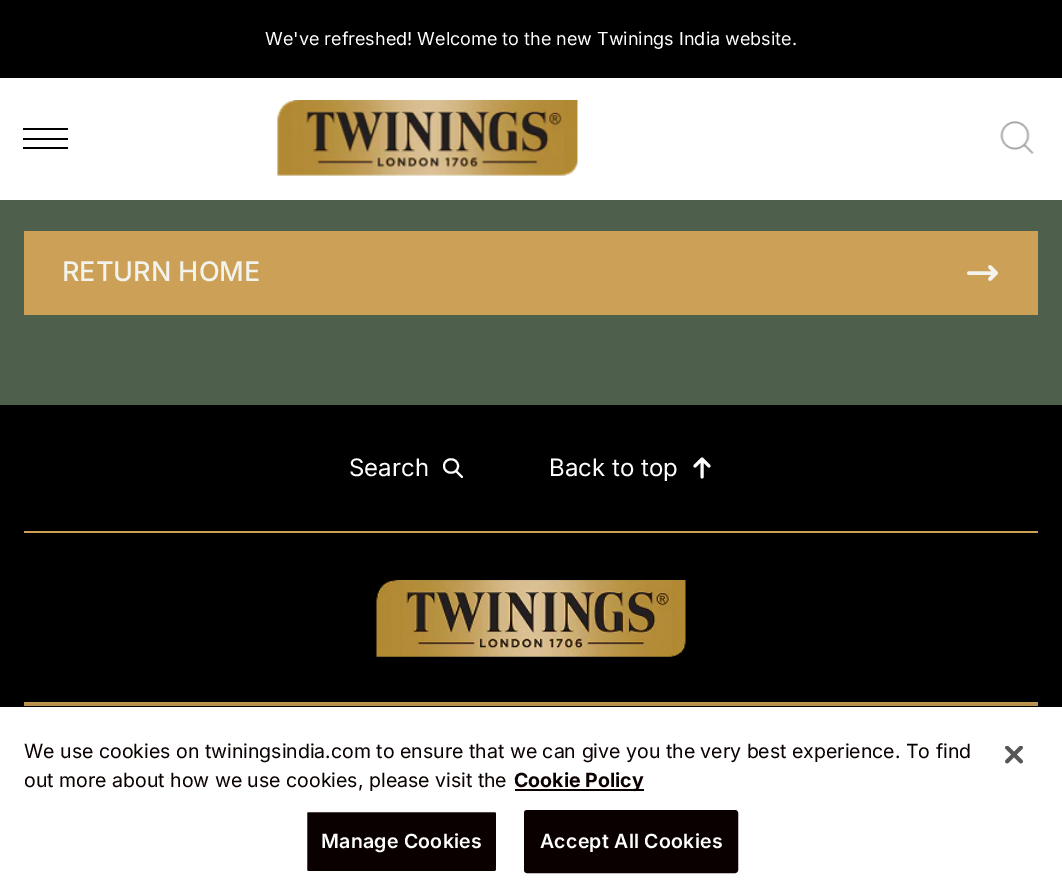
%!PS-Adobe-3.0
%%BoundingBox: 0 0 1062 896
%%LanguageLevel: 3
%%Pages: 1
%%EndComments
%%BeginProlog
/setink { dup -16 bitshift 255 div exch dup -8 bitshift 255 and 255 div exch 255 and 255 div setrgbcolor } def
/usefont { [ exch dup neg 0 0 3 -1 roll 0 0 ] selectfont } def
/setalpha { dup .setfillconstantalpha .setstrokeconstantalpha } def
/rrect { 5 dict begin { /r /h /w /y /x } { exch def } forall
  x r add y moveto x w add y 2 copy h add r arct x w add y h add x 1 index r arct
  x y h add x y r arct x y 2 copy exch w add exch r arct closepath end } def
/softshadow { 12 dict begin { /a /b /q /h /w /y /x } { exch def } forall gsave /was 0 def
  9 -2 -9 { dup b mul 4 div /e exch def 1 sub .425 mul 2.718 exch exp 1 add a .99 .min exch div /now exch def
    1 1 now sub 1 was sub div sub setalpha /was now def
    w h .min e 2 mul add 0 gt { x e sub y e sub w e 2 mul add h e 2 mul add
      q e add b .6 mul add w h .min 2 div e add .min 0 .max rrect fill } if } for grestore end } def
/drawimage { 5 dict begin { /h /w /y /x /name } { exch def } forall
  gsave x y translate w h scale
  w h 8 [w 0 0 h 0 0] name (r) file false 3 colorimage grestore end } def
%%EndProlog
%%BeginSetup
<< /PageSize [1062 896] /PageUsesTransparency true >> setpagedevice
%%EndSetup
%%Page: 1 1
0 .pushpdf14devicefilter
0 896 translate 1 -1 scale
4 setmiterlimit
16#4E5F4B setink
0 0 1062 896 rectfill
16#000000 setink
0 0 1062 78 rectfill
/Inter-Regular 18 usefont
16#FFFFFF setink
265 45 moveto (We've refreshed! Welcome to the new Twinings India website.) show
[
    [0 78 1062 122 16#FFFFFF]
    [23 128 45 2 16#000000]
    [23 138 45 2 16#000000]
    [23 147 45 2 16#000000]
] { aload pop setink rectfill } forall
(img1.raw) 277 100 301 76 drawimage
(img2.raw) 1000 121 34 33 drawimage
16#CCA056 setink
24 231 1014 84 rectfill
/Inter-Medium 27 usefont
16#F3F3ED setink
62 281 moveto (RETURN HOME) show
3.6 setlinewidth
1 setlinecap
1 setlinejoin
990 267 moveto 996 273 lineto 996 273 moveto 990 279 lineto 996 273 moveto 969 273 lineto stroke
[
    [0 405 1062 302 16#000000]
    [24 702 1014 4 16#CCA056]
    [24 531 1014 2 16#CCA056]
] { aload pop setink rectfill } forall
/Inter-Regular 24 usefont
16#FFFFFF setink
349 476 moveto (Search) show
2 setlinewidth
462 477 moveto 456 471 lineto 458 466 moveto 458 475 444 475 444 466 curveto 444 457 458 457 458 466 curveto closepath stroke
549 476 moveto (Back to top) show
3 setlinewidth
695 466 moveto 702 459 lineto 702 459 moveto 709 466 lineto 702 459 moveto 702 477 lineto stroke
(img3.raw) 376 580 310 77 drawimage
16#000000 setink
0 707 1062 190 0 13.5 0.2 softshadow
16#FFFFFF setink
0 707 1062 189 rectfill
/Inter-Regular 19.5 usefont
16#0A0000 setink
24 758 moveto (We use cookies on twiningsindia.com to ensure that we can give you the very best experience. To find) show
24 787 moveto (out more about how we use cookies, please visit the) show
515 789 129 2 rectfill
/Inter-Bold 19.5 usefont
514 787 moveto (Cookie Policy) show
306 811 191 61 2 rrect gsave fill grestore
16#FFFFFF setink
2 setlinewidth
0 setlinecap
0 setlinejoin
stroke
/Inter-SemiBold 19.5 usefont
321 848 moveto 0.25 0 (Manage Cookies) ashow
16#0A0000 setink
525 811 212 61 2 rrect gsave fill grestore
stroke
16#FFFFFF setink
540 848 moveto 0.25 0 (Accept All Cookies) ashow
(img4.raw) 1005 746 18 18 drawimage
.poppdf14devicefilter showpage
%%EOF
